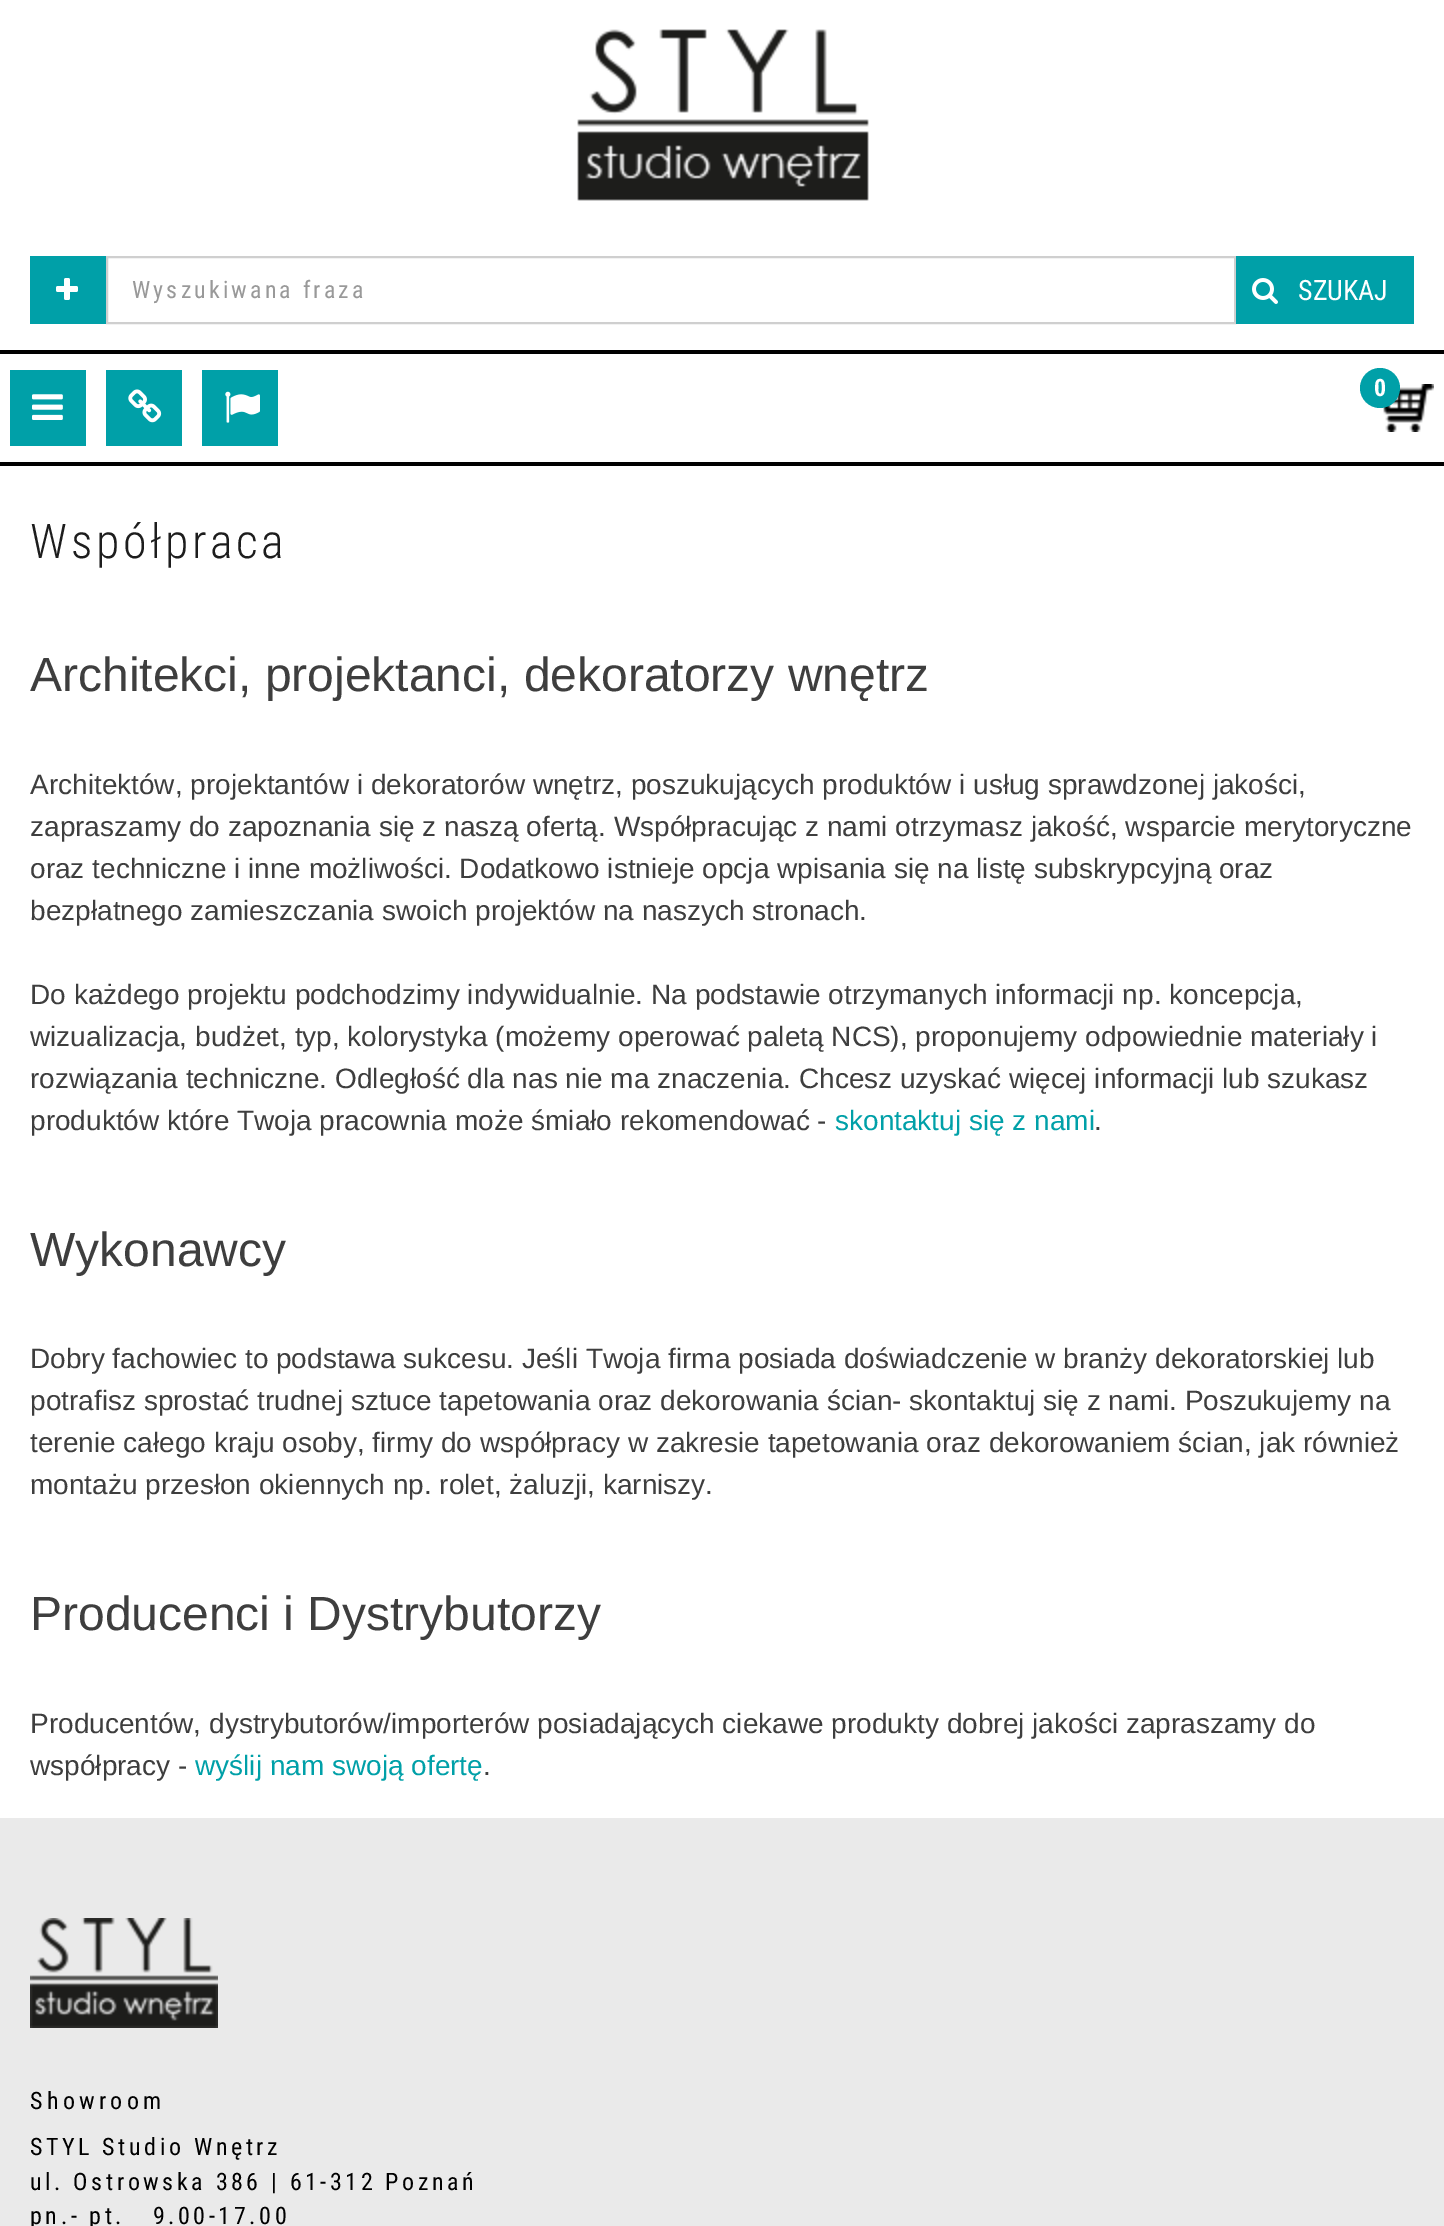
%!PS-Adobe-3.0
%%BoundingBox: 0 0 1444 2226
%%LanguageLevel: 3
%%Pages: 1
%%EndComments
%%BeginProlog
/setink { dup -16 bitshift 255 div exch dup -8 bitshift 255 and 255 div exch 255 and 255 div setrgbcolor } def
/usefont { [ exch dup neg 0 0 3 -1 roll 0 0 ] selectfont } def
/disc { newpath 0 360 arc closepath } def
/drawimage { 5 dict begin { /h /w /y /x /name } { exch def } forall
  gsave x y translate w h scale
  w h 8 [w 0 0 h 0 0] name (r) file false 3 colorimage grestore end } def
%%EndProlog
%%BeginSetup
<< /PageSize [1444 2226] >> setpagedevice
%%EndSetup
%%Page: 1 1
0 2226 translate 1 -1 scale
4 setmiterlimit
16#FFFFFF setink
0 0 1444 2226 rectfill
(img1.raw) 577 29 292 172 drawimage
16#00A0A8 setink
30 256 76 68 rectfill
(img2.raw) 56 278 22 22 drawimage
16#CFCFCF setink
2 setlinewidth
107 257 1128 66 rectstroke
/RobotoCondensed-Regular 24 usefont
16#999999 setink
132 298 moveto 3.1 0 (Wyszukiwana fraza) ashow
16#00A0A8 setink
1236 256 178 68 rectfill
(img3.raw) 1252 278 26 26 drawimage
/RobotoCondensed-Regular 28 usefont
16#FFFFFF setink
1298 300 moveto (SZUKAJ) show
[
    [0 350 1444 4 16#000000]
    [0 462 1444 4 16#000000]
    [10 370 76 76 16#00A0A8]
] { aload pop setink rectfill } forall
(img4.raw) 32 394 31 26 drawimage
106 370 76 76 rectfill
(img5.raw) 128 389 34 34 drawimage
202 370 76 76 rectfill
(img6.raw) 225 391 35 32 drawimage
(img7.raw) 1383 384 51 48 drawimage
1380 388 20 disc fill
/RobotoCondensed-Bold 24 usefont
16#FFFFFF setink
1374 396 moveto 3.6 0 (0) ashow
/RobotoCondensed-Light 48 usefont
16#1D1D1D setink
30 558 moveto 3.6 0 (Współpraca) ashow
/LiberationSans-Regular 48 usefont
16#3E3E3E setink
30 691 moveto (Architekci, projektanci, dekoratorzy wnętrz) show
/LiberationSans-Regular 28 usefont
[
    [(Architektów, projektantów i dekoratorów wnętrz, poszukujących produktów i usług sprawdzonej jakości,) 30 794]
    [(zapraszamy do zapoznania się z naszą ofertą. Współpracując z nami otrzymasz jakość, wsparcie merytoryczne) 30 836]
    [(oraz techniczne i inne możliwości. Dodatkowo istnieje opcja wpisania się na listę subskrypcyjną oraz) 30 878]
    [(bezpłatnego zamieszczania swoich projektów na naszych stronach.) 30 920]
    [(Do każdego projektu podchodzimy indywidualnie. Na podstawie otrzymanych informacji np. koncepcja,) 30 1004]
    [(wizualizacja, budżet, typ, kolorystyka \(możemy operować paletą NCS\), proponujemy odpowiednie materiały i) 30 1046]
    [(rozwiązania techniczne. Odległość dla nas nie ma znaczenia. Chcesz uzyskać więcej informacji lub szukasz) 30 1088]
    [(produktów które Twoja pracownia może śmiało rekomendować -) 30 1130]
] { aload pop moveto show } forall
16#00A0A8 setink
835 1130 moveto (skontaktuj się z nami) show
16#3E3E3E setink
1094 1130 moveto (.) show
/LiberationSans-Regular 48 usefont
30 1266 moveto (Wykonawcy) show
/LiberationSans-Regular 28 usefont
[
    [(Dobry fachowiec to podstawa sukcesu. Jeśli Twoja firma posiada doświadczenie w branży dekoratorskiej lub) 30 1368]
    [(potrafisz sprostać trudnej sztuce tapetowania oraz dekorowania ścian- skontaktuj się z nami. Poszukujemy na) 30 1410]
    [(terenie całego kraju osoby, firmy do współpracy w zakresie tapetowania oraz dekorowaniem ścian, jak również) 30 1452]
    [(montażu przesłon okiennych np. rolet, żaluzji, karniszy.) 30 1494]
] { aload pop moveto show } forall
/LiberationSans-Regular 48 usefont
30 1630 moveto (Producenci i Dystrybutorzy) show
/LiberationSans-Regular 28 usefont
30 1733 moveto (Producentów, dystrybutorów/importerów posiadających ciekawe produkty dobrej jakości zapraszamy do) show
30 1775 moveto (współpracy -) show
16#00A0A8 setink
195 1775 moveto (wyślij nam swoją ofertę) show
16#3E3E3E setink
483 1775 moveto (.) show
16#EAEAEA setink
0 1818 1444 408 rectfill
(img8.raw) 30 1918 188 110 drawimage
/RobotoCondensed-Regular 24 usefont
16#000000 setink
30 2109 moveto 4.25 0 (Showroom) ashow
30 2155 moveto 3.6 0 (STYL Studio Wnętrz) ashow
30 2190 moveto 3.6 0 (ul. Ostrowska 386 | 61-312 Poznań) ashow
30 2224 moveto 3.6 0 (pn.- pt.   9.00-17.00) ashow
showpage
%%EOF
